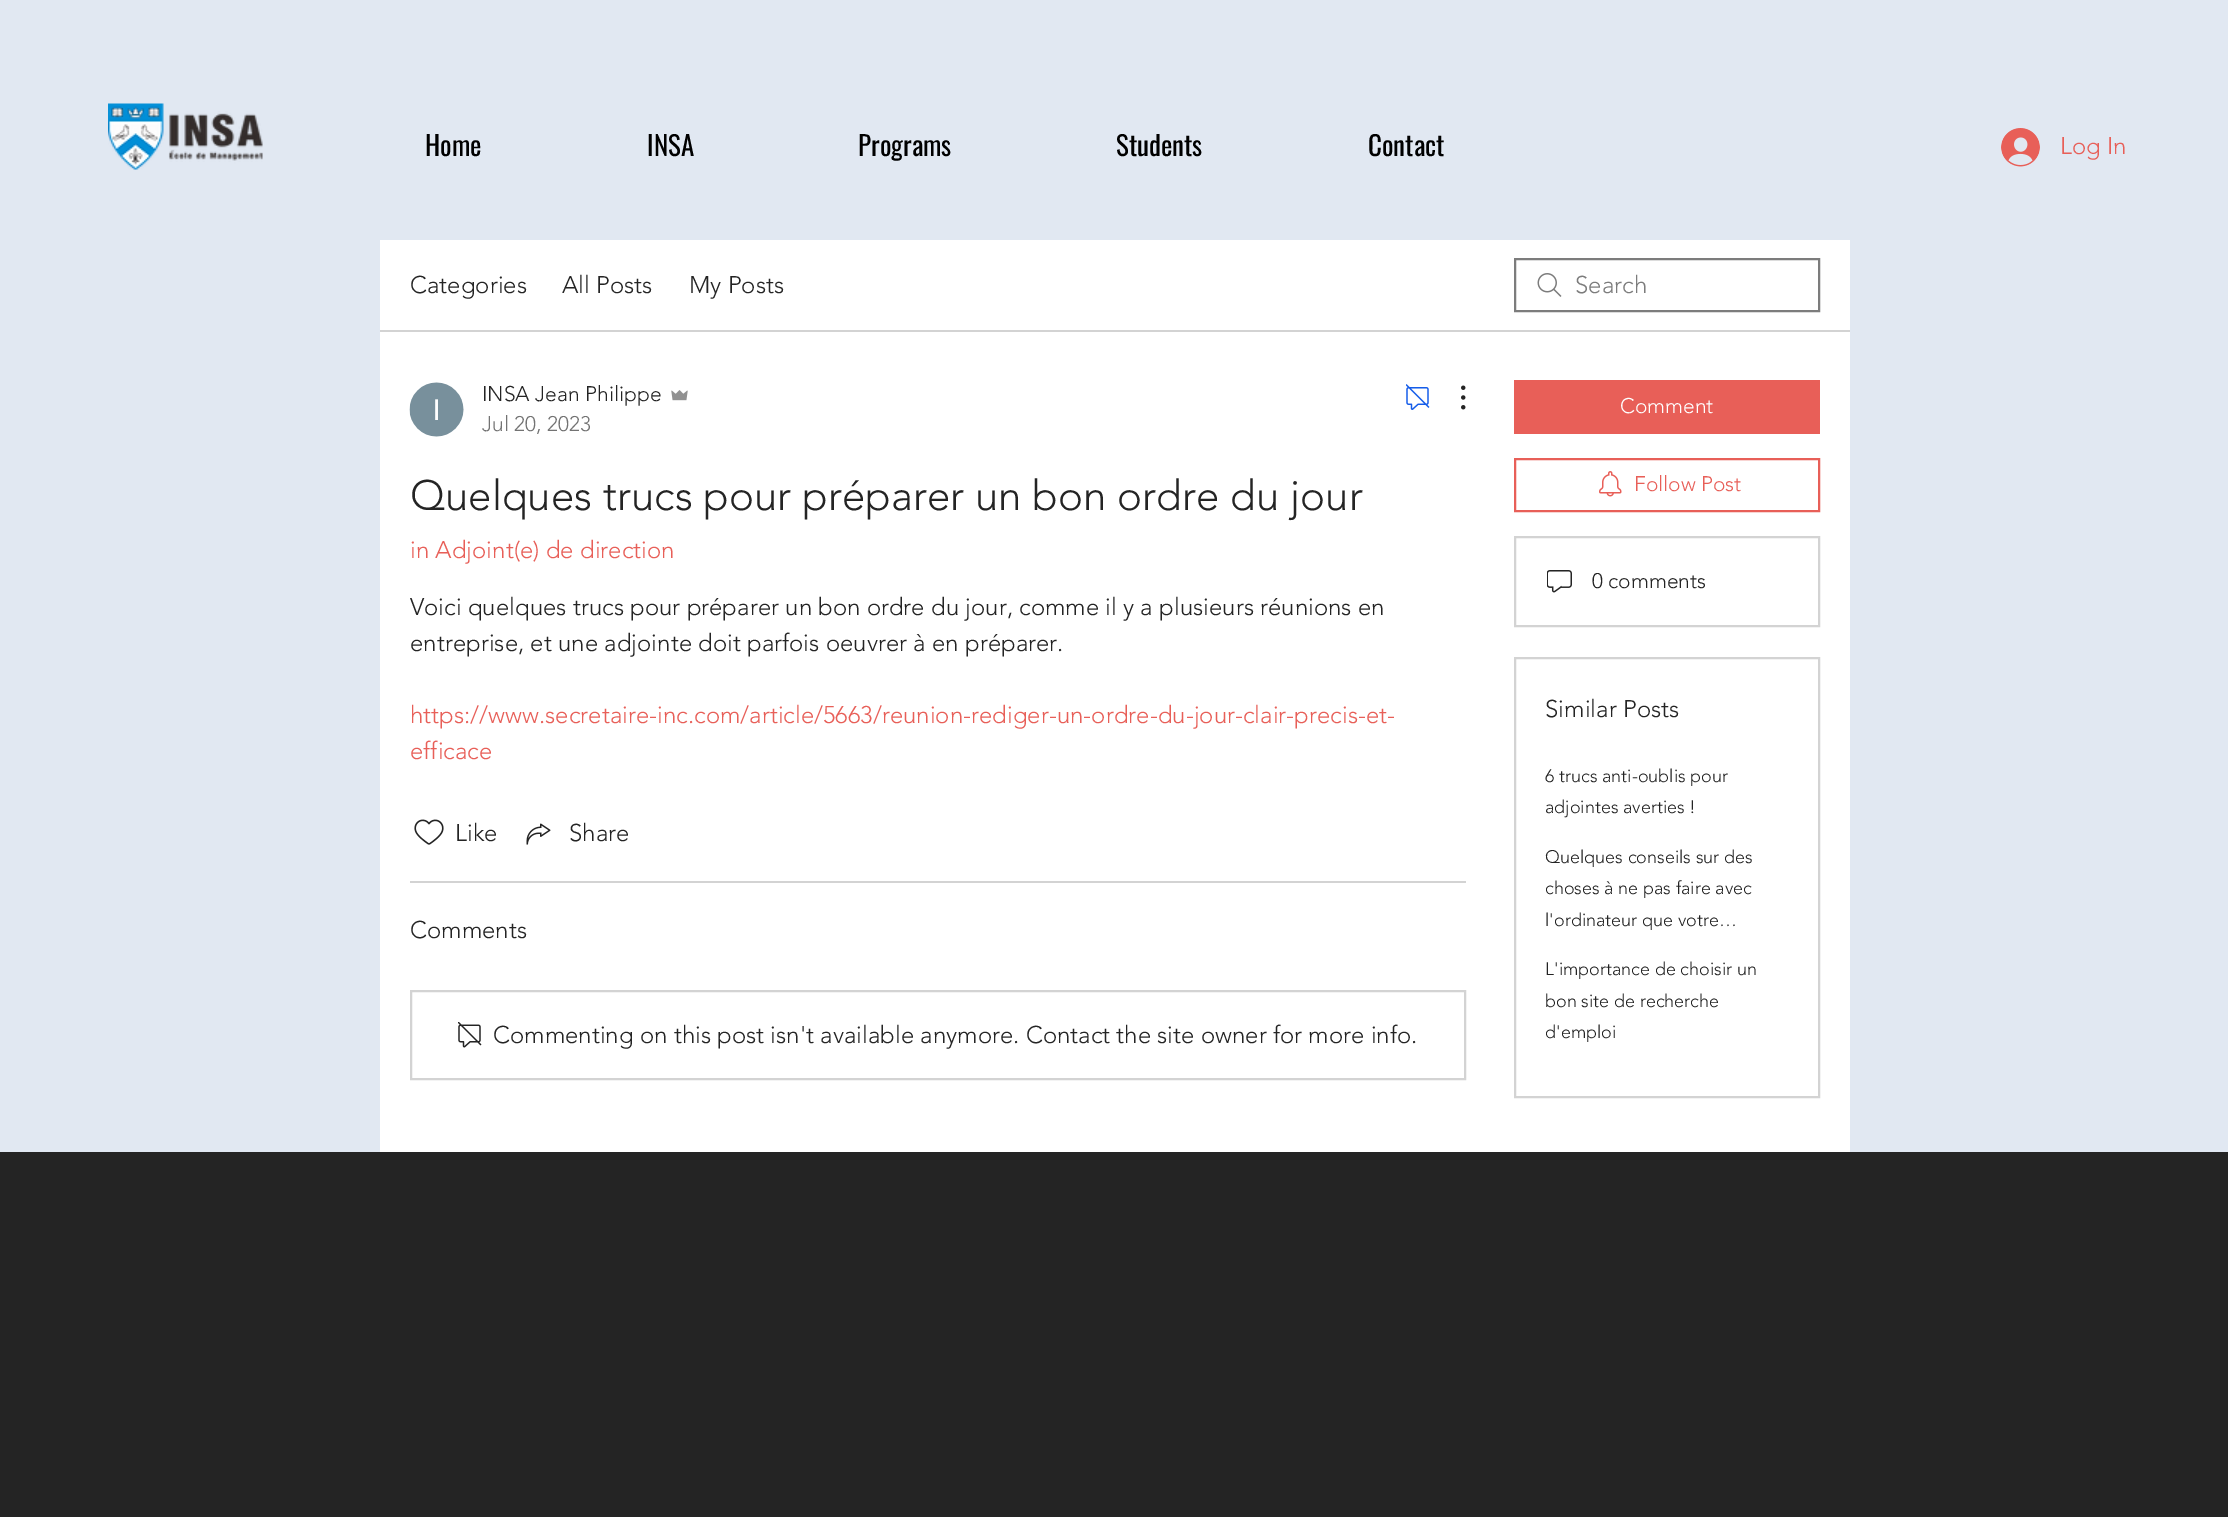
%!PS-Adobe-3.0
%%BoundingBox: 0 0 2228 1517
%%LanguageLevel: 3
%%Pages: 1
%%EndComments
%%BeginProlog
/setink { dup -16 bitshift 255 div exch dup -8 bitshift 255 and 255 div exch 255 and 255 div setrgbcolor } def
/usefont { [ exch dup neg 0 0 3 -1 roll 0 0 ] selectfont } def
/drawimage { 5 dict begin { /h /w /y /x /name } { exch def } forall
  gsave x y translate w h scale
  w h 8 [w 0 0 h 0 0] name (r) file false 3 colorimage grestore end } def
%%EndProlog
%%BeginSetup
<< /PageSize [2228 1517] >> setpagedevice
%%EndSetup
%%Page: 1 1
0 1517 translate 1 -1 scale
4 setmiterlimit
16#E1E8F2 setink
0 0 2228 1517 rectfill
(img1.raw) 108 103 155 67 drawimage
/Oswald-Regular 27 usefont
16#000000 setink
[
    [(Home) 425 156]
    [(INSA) 647 156]
    [(Programs) 858 156]
    [(Students) 1116 156]
    [(Contact) 1368 156]
] { aload pop moveto show } forall
(img2.raw) 2001 128 39 39 drawimage
/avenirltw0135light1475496-Light 24 usefont
16#E85F58 setink
2060 154 moveto (Log In) show
16#FFFFFF setink
380 240 1470 912 rectfill
16#D3D3D3 setink
380 330 1470 2 rectfill
16#242424 setink
[
    [(Categories) 410 293]
    [(All Posts) 562 293]
    [(My Posts) 689 293]
] { aload pop moveto show } forall
(img3.raw) 1537 273 25 24 drawimage
16#7C7C7C setink
2 setlinewidth
1515 259 304 52 rectstroke
1575 293 moveto (Search) show
(img4.raw) 409 382 55 55 drawimage
/avenirltw0135light1475496-Light 21 usefont
16#242424 setink
482 401 moveto (INSA Jean Philippe) show
(img5.raw) 671 390 17 11 drawimage
16#737373 setink
482 431 moveto (Jul 20, 2023) show
(img6.raw) 1406 384 24 26 drawimage
(img7.raw) 1461 385 5 25 drawimage
/avenirltw0135light1475496-Light 42 usefont
16#242424 setink
410 510 moveto (Quelques trucs pour préparer un bon ordre du jour) show
/avenirltw0135light1475496-Light 24 usefont
16#E85F58 setink
410 558 moveto (in Adjoint\(e\) de direction) show
16#242424 setink
410 615 moveto (Voici quelques trucs pour préparer un bon ordre du jour, comme il y a plusieurs réunions en) show
410 651 moveto (entreprise, et une adjointe doit parfois oeuvrer à en préparer.) show
16#E85F58 setink
410 723 moveto (https://www.secretaire-inc.com/article/5663/reunion-rediger-un-ordre-du-jour-clair-precis-et-) show
410 759 moveto (efficace) show
(img8.raw) 414 819 30 26 drawimage
16#242424 setink
455 841 moveto (Like) show
(img9.raw) 526 823 25 22 drawimage
569 841 moveto (Share) show
16#D3D3D3 setink
410 881 1056 2 rectfill
16#242424 setink
410 938 moveto (Comments) show
16#D3D3D3 setink
411 991 1054 88 rectstroke
(img10.raw) 458 1022 24 26 drawimage
16#242424 setink
493 1043 moveto (Commenting on this post isn't available anymore. Contact the site owner for more info.) show
16#E85F58 setink
1514 380 306 54 rectfill
/avenirltw0135light1475496-Light 21 usefont
16#FFFFFF setink
1620 413 moveto (Comment) show
16#E85F58 setink
1515 459 304 52 rectstroke
(img11.raw) 1599 471 23 26 drawimage
1634 491 moveto (Follow Post) show
16#D3D3D3 setink
1515 537 304 89 rectstroke
(img12.raw) 1547 570 25 23 drawimage
16#242424 setink
1592 588 moveto (0 comments) show
16#D3D3D3 setink
1515 658 304 439 rectstroke
/avenirltw0135light1475496-Light 24 usefont
16#242424 setink
1545 717 moveto (Similar Posts) show
/avenirltw0135light1475496-Light 18 usefont
[
    [(6 trucs anti-oublis pour) 1545 782]
    [(adjointes averties !) 1545 813]
    [(Quelques conseils sur des) 1545 863]
    [(choses à ne pas faire avec) 1545 894]
    [(l'ordinateur que votre…) 1545 926]
    [(L'importance de choisir un) 1545 975]
    [(bon site de recherche) 1545 1007]
    [(d'emploi) 1545 1038]
] { aload pop moveto show } forall
0 1152 2228 365 rectfill
showpage
%%EOF
